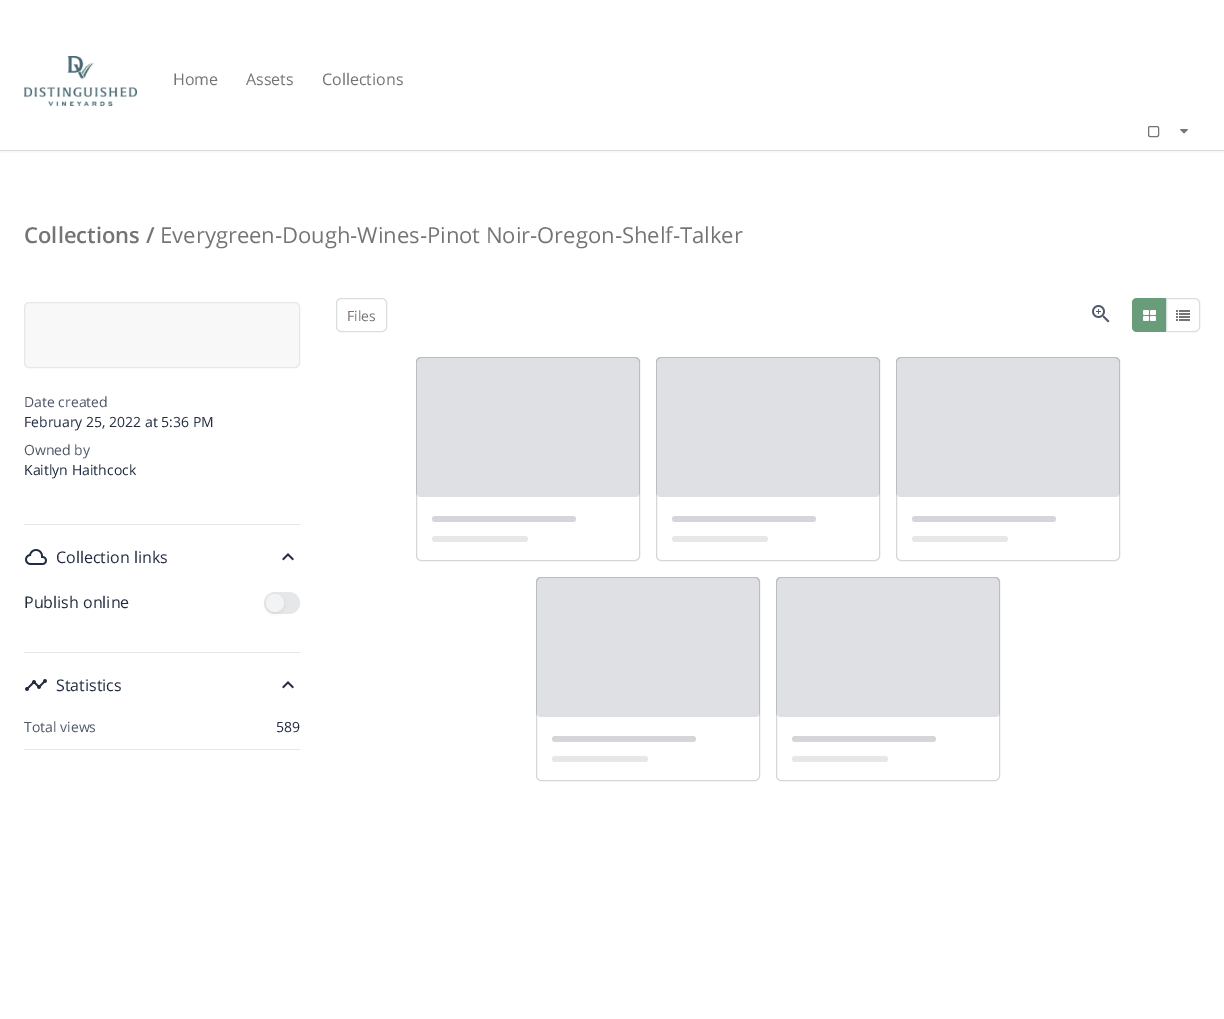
%!PS-Adobe-3.0
%%BoundingBox: 0 0 1224 1019
%%LanguageLevel: 3
%%Pages: 1
%%EndComments
%%BeginProlog
/setink { dup -16 bitshift 255 div exch dup -8 bitshift 255 and 255 div exch 255 and 255 div setrgbcolor } def
/usefont { [ exch dup neg 0 0 3 -1 roll 0 0 ] selectfont } def
/setalpha { dup .setfillconstantalpha .setstrokeconstantalpha } def
/disc { newpath 0 360 arc closepath } def
/rrect { 5 dict begin { /r /h /w /y /x } { exch def } forall
  x r add y moveto x w add y 2 copy h add r arct x w add y h add x 1 index r arct
  x y h add x y r arct x y 2 copy exch w add exch r arct closepath end } def
/softshadow { 12 dict begin { /a /b /q /h /w /y /x } { exch def } forall gsave /was 0 def
  9 -2 -9 { dup b mul 4 div /e exch def 1 sub .425 mul 2.718 exch exp 1 add a .99 .min exch div /now exch def
    1 1 now sub 1 was sub div sub setalpha /was now def
    w h .min e 2 mul add 0 gt { x e sub y e sub w e 2 mul add h e 2 mul add
      q e add b .6 mul add w h .min 2 div e add .min 0 .max rrect fill } if } for grestore end } def
/drawimage { 5 dict begin { /h /w /y /x /name } { exch def } forall
  gsave x y translate w h scale
  w h 8 [w 0 0 h 0 0] name (r) file false 3 colorimage grestore end } def
%%EndProlog
%%BeginSetup
<< /PageSize [1224 1019] /PageUsesTransparency true >> setpagedevice
%%EndSetup
%%Page: 1 1
0 .pushpdf14devicefilter
0 1019 translate 1 -1 scale
4 setmiterlimit
16#FFFFFF setink
0 0 1224 1019 rectfill
gsave
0 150 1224 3 rectclip
16#000000 setink
0 0 1224 150 0 3 0.1 softshadow
grestore
0.1 setalpha
16#000000 setink
0 150 1224 1 rectfill
1 setalpha
(img1.raw) 24 56 113 50 drawimage
/OpenSans-Regular 16 usefont
16#747474 setink
[
    [(Home) 173 85]
    [(Assets) 246 85]
    [(Collections) 322 85]
] { aload pop moveto show } forall
1148.5 126.5 10 10 1.5 rrect stroke
(img2.raw) 1180 129 8 5 drawimage
/OpenSans-SemiBold 22 usefont
24 243 moveto (Collections /) show
/OpenSans-Regular 22 usefont
160 243 moveto (Everygreen-Dough-Wines-Pinot Noir-Oregon-Shelf-Talker) show
16#D9DEE1 setink
336.5 298.5 50 33 4.5 rrect stroke
/OpenSans-Regular 14 usefont
16#747474 setink
347 321 moveto (Files) show
(img3.raw) 1092 305 18 18 drawimage
16#699C78 setink
1137 298 moveto 1166 298 lineto 1166 332 lineto 1137 332 lineto 1134 332 1132 330 1132 327 curveto 1132 303 lineto 1132 300 1134 298 1137 298 curveto closepath fill
(img4.raw) 1143 310 13 11 drawimage
16#D9DEE1 setink
1166.5 298.5 moveto 1195 298.5 lineto 1197.5 298.5 1199.5 300.5 1199.5 303 curveto 1199.5 327 lineto 1199.5 329.5 1197.5 331.5 1195 331.5 curveto 1166.5 331.5 lineto closepath stroke
(img5.raw) 1176 310 14 11 drawimage
16#D4D6DA setink
416.5 357.5 223 203 4.5 rrect stroke
16#F8F8F9 setink
421 357 moveto 635 357 lineto 638 357 640 359 640 362 curveto 640 497 lineto 416 497 lineto 416 362 lineto 416 359 418 357 421 357 curveto closepath fill
0.1 setalpha
16#031026 setink
416 357 224 140 5 rrect fill
0.17 setalpha
421 357 moveto 635 357 lineto 638 357 640 359 640 362 curveto 640 497 lineto 416 497 lineto 416 362 lineto 416 359 418 357 421 357 curveto closepath 421 358 moveto 635 358 lineto 637 358 639 360 639 362 curveto 639 497 lineto 417 497 lineto 417 362 lineto 417 360 419 358 421 358 curveto closepath eofill
1 setalpha
16#D4D6DA setink
432 516 144 6 3 rrect fill
16#E6E7E9 setink
432 536 96 6 3 rrect fill
16#D4D6DA setink
656.5 357.5 223 203 4.5 rrect stroke
16#F8F8F9 setink
661 357 moveto 875 357 lineto 878 357 880 359 880 362 curveto 880 497 lineto 656 497 lineto 656 362 lineto 656 359 658 357 661 357 curveto closepath fill
0.1 setalpha
16#031026 setink
656 357 224 140 5 rrect fill
0.17 setalpha
661 357 moveto 875 357 lineto 878 357 880 359 880 362 curveto 880 497 lineto 656 497 lineto 656 362 lineto 656 359 658 357 661 357 curveto closepath 661 358 moveto 875 358 lineto 877 358 879 360 879 362 curveto 879 497 lineto 657 497 lineto 657 362 lineto 657 360 659 358 661 358 curveto closepath eofill
1 setalpha
16#D4D6DA setink
672 516 144 6 3 rrect fill
16#E6E7E9 setink
672 536 96 6 3 rrect fill
16#D4D6DA setink
896.5 357.5 223 203 4.5 rrect stroke
16#F8F8F9 setink
901 357 moveto 1115 357 lineto 1118 357 1120 359 1120 362 curveto 1120 497 lineto 896 497 lineto 896 362 lineto 896 359 898 357 901 357 curveto closepath fill
0.1 setalpha
16#031026 setink
896 357 224 140 5 rrect fill
0.17 setalpha
901 357 moveto 1115 357 lineto 1118 357 1120 359 1120 362 curveto 1120 497 lineto 896 497 lineto 896 362 lineto 896 359 898 357 901 357 curveto closepath 901 358 moveto 1115 358 lineto 1117 358 1119 360 1119 362 curveto 1119 497 lineto 897 497 lineto 897 362 lineto 897 360 899 358 901 358 curveto closepath eofill
1 setalpha
16#D4D6DA setink
912 516 144 6 3 rrect fill
16#E6E7E9 setink
912 536 96 6 3 rrect fill
16#D4D6DA setink
536.5 577.5 223 203 4.5 rrect stroke
16#F8F8F9 setink
541 577 moveto 755 577 lineto 758 577 760 579 760 582 curveto 760 717 lineto 536 717 lineto 536 582 lineto 536 579 538 577 541 577 curveto closepath fill
0.1 setalpha
16#031026 setink
536 577 224 140 5 rrect fill
0.17 setalpha
541 577 moveto 755 577 lineto 758 577 760 579 760 582 curveto 760 717 lineto 536 717 lineto 536 582 lineto 536 579 538 577 541 577 curveto closepath 541 578 moveto 755 578 lineto 757 578 759 580 759 582 curveto 759 717 lineto 537 717 lineto 537 582 lineto 537 580 539 578 541 578 curveto closepath eofill
1 setalpha
16#D4D6DA setink
552 736 144 6 3 rrect fill
16#E6E7E9 setink
552 756 96 6 3 rrect fill
16#D4D6DA setink
776.5 577.5 223 203 4.5 rrect stroke
16#F8F8F9 setink
781 577 moveto 995 577 lineto 998 577 1000 579 1000 582 curveto 1000 717 lineto 776 717 lineto 776 582 lineto 776 579 778 577 781 577 curveto closepath fill
0.1 setalpha
16#031026 setink
776 577 224 140 5 rrect fill
0.17 setalpha
781 577 moveto 995 577 lineto 998 577 1000 579 1000 582 curveto 1000 717 lineto 776 717 lineto 776 582 lineto 776 579 778 577 781 577 curveto closepath 781 578 moveto 995 578 lineto 997 578 999 580 999 582 curveto 999 717 lineto 777 717 lineto 777 582 lineto 777 580 779 578 781 578 curveto closepath eofill
1 setalpha
16#D4D6DA setink
792 736 144 6 3 rrect fill
16#E6E7E9 setink
792 756 96 6 3 rrect fill
16#F8F8F9 setink
24.5 302.5 275 65 4.5 rrect gsave fill grestore
16#E6E7E9 setink
stroke
16#4F5867 setink
24 407 moveto (Date created) show
16#212C40 setink
24 427 moveto (February 25, 2022 at 5:36 PM) show
16#4F5867 setink
24 455 moveto (Owned by) show
16#212C40 setink
24 475 moveto (Kaitlyn Haithcock) show
16#E6E7E9 setink
24 524 276 1 rectfill
(img6.raw) 25 549 22 16 drawimage
/OpenSans-Regular 16 usefont
16#212C40 setink
56 563 moveto (Collection links) show
(img7.raw) 282 553 12 8 drawimage
24 608 moveto (Publish online) show
16#E6E7E9 setink
264 592 36 22 11 rrect fill
16#031026 setink
267 597 16 16 8 2 0.1 softshadow
16#F2F3F4 setink
275 603 9 disc fill
16#E6E7E9 setink
24 652 276 1 rectfill
(img8.raw) 25 679 22 12 drawimage
16#212C40 setink
56 691 moveto (Statistics) show
(img7.raw) 282 681 12 8 drawimage
/OpenSans-Regular 14 usefont
16#4F5867 setink
24 732 moveto (Total views) show
16#212C40 setink
276 732 moveto (589) show
16#E6E7E9 setink
24 749 276 1 rectfill
.poppdf14devicefilter showpage
%%EOF
